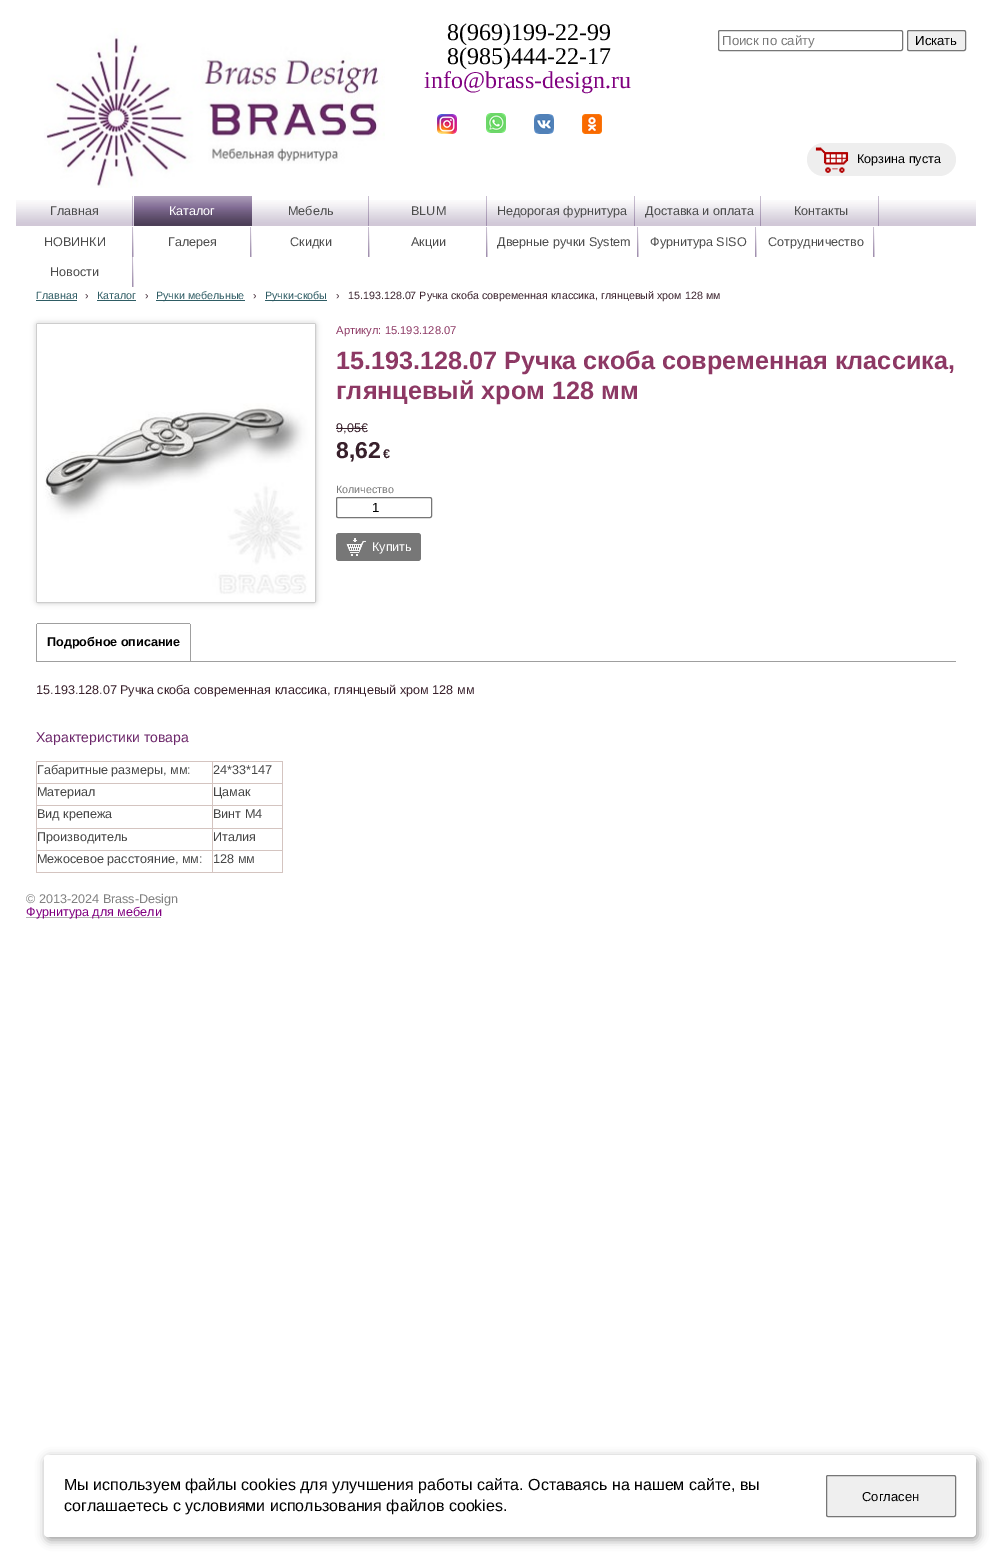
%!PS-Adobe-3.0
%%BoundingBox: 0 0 991 1552
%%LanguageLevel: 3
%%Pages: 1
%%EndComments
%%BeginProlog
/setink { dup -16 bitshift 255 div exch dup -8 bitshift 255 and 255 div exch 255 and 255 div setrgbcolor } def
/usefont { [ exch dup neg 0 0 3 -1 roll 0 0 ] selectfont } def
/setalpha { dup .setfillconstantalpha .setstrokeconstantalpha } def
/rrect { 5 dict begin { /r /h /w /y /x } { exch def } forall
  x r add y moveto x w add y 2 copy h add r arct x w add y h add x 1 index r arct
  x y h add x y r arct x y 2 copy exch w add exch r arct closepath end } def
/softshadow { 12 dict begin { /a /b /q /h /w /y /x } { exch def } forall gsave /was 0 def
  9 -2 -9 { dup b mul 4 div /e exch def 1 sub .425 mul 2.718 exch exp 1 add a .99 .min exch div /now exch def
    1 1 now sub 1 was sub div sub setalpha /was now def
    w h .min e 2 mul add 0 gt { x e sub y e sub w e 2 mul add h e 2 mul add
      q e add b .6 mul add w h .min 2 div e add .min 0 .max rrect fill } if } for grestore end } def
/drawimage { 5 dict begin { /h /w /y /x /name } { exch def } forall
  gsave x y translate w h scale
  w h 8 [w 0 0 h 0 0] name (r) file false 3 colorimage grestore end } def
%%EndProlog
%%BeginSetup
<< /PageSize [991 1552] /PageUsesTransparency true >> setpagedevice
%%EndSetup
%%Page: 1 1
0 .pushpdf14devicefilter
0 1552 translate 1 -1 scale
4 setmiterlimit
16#FFFFFF setink
0 0 991 1552 rectfill
(img1.raw) 44 28 341 160 drawimage
/LiberationSerif-Regular 24 usefont
16#000000 setink
447 40 moveto (8\(969\)199-22-99) show
447 64 moveto (8\(985\)444-22-17) show
16#800080 setink
424 88 moveto (info@brass-design.ru) show
16#767676 setink
718.5 30.5 184 20 1.5 rrect stroke
/LiberationSans-Regular 13.25 usefont
16#787878 setink
722 45 moveto (Поиск по сайту) show
16#EFEFEF setink
907.5 30.5 58 20 1.5 rrect gsave fill grestore
16#767676 setink
stroke
16#000000 setink
915 45 moveto (Искать) show
16#EEEEEE setink
807 143 149 33 16.5 rrect fill
(img2.raw) 815 147 34 26 drawimage
/LiberationSans-Regular 12.6 usefont
16#000000 setink
857 163 moveto (Корзина пуста) show
(img3.raw) 437 114 20 20 drawimage
(img4.raw) 486 113 20 20 drawimage
(img5.raw) 534 114 20 20 drawimage
(img6.raw) 582 114 20 20 drawimage
(img7.raw) 16 200 960 26 drawimage
(img8.raw) 132 196 1 30 drawimage
16#4C4C4C setink
50 215 moveto (Главная) show
(img9.raw) 134 196 118 30 drawimage
16#FFFFFF setink
169 215 moveto (Каталог) show
(img8.raw) 368 196 1 30 drawimage
16#4C4C4C setink
288 215 moveto (Мебель) show
(img8.raw) 486 196 1 30 drawimage
411 215 moveto (BLUM) show
(img8.raw) 634 196 1 30 drawimage
497 215 moveto (Недорогая фурнитура) show
(img8.raw) 760 196 1 30 drawimage
645 215 moveto (Доставка и оплата) show
(img8.raw) 878 196 1 30 drawimage
794 215 moveto (Контакты) show
(img10.raw) 132 227 2 30 drawimage
44 246 moveto (НОВИНКИ) show
(img10.raw) 250 227 2 30 drawimage
168 246 moveto (Галерея) show
(img10.raw) 368 227 2 30 drawimage
290 246 moveto (Скидки) show
(img10.raw) 486 227 2 30 drawimage
411 246 moveto (Акции) show
(img10.raw) 637 227 2 30 drawimage
497 246 moveto (Дверные ручки System) show
(img10.raw) 755 227 2 30 drawimage
650 246 moveto (Фурнитура SISO) show
(img10.raw) 873 227 2 30 drawimage
768 246 moveto (Сотрудничество) show
(img10.raw) 132 257 2 30 drawimage
50 276 moveto (Новости) show
/LiberationSans-Regular 10.7 usefont
16#2E5C64 setink
36 299 moveto (Главная) show
36 300 41 1 rectfill
16#38202B setink
85 299 moveto (›) show
16#2E5C64 setink
97 299 moveto (Каталог) show
97 300 39 1 rectfill
16#38202B setink
145 299 moveto (›) show
16#2E5C64 setink
156 300 89 1 rectfill
156 299 moveto (Ручки мебельные) show
16#38202B setink
253 299 moveto (›) show
16#2E5C64 setink
265 300 62 1 rectfill
265 299 moveto (Ручки-скобы) show
16#38202B setink
336 299 moveto (›) show
348 299 moveto (15.193.128.07 Ручка скоба современная классика, глянцевый хром 128 мм) show
16#DFDFDF setink
35 322 282 282 3 2.5 1 softshadow
16#CDCDCD setink
36.5 323.5 279 279 1.5 rrect stroke
(img11.raw) 37 324 278 278 drawimage
/LiberationSans-Regular 11.25 usefont
16#8D3864 setink
336 334 moveto (Артикул: 15.193.128.07) show
/LiberationSans-Bold 25.2 usefont
336 369 moveto (15.193.128.07 Ручка скоба современная классика,) show
336 399 moveto (глянцевый хром 128 мм) show
/LiberationSans-Regular 12.6 usefont
16#38202B setink
336 432 moveto (9,05€) show
336 428 31 1 rectfill
/LiberationSans-Bold 23 usefont
336 458 moveto (8,62) show
/LiberationSans-Bold 12.6 usefont
383 458 moveto (€) show
/LiberationSans-Regular 10.7 usefont
16#787878 setink
336 493 moveto (Количество) show
16#767676 setink
336.5 497.5 95 20 1.5 rrect stroke
/LiberationSans-Regular 13.25 usefont
16#000000 setink
372 512 moveto (1) show
16#777777 setink
336 533 85 28 3 rrect fill
(img12.raw) 346 538 20 18 drawimage
/LiberationSans-Regular 12.6 usefont
16#FFFFFF setink
372 551 moveto (Купить) show
[
    [37 623 153 1 16#9F9F9F]
    [190 624 1 37 16#9F9F9F]
    [36 624 1 37 16#9F9F9F]
] { aload pop setink rectfill } forall
/LiberationSans-Bold 12.6 usefont
16#000000 setink
47 646 moveto (Подробное описание) show
16#9F9F9F setink
36 661 920 1 rectfill
/LiberationSans-Regular 12.6 usefont
16#38202B setink
36 694 moveto (15.193.128.07 Ручка скоба современная классика, глянцевый хром 128 мм) show
/LiberationSans-Regular 14 usefont
16#6C276A setink
36 742 moveto (Характеристики товара) show
[
    [36 761 247 1 16#D4C4C0]
    [282 761 1 112 16#D4C4C0]
    [36 872 247 1 16#D4C4C0]
    [36 761 1 112 16#D4C4C0]
] { aload pop setink rectfill } forall
/LiberationSans-Regular 12.6 usefont
16#464646 setink
37 774 moveto (Габаритные размеры, мм:) show
[
    [212 783 71 1 16#D4C4C0]
    [212 805 71 1 16#D4C4C0]
    [212 828 71 1 16#D4C4C0]
    [212 850 71 1 16#D4C4C0]
    [212 850 1 23 16#D4C4C0]
    [36 850 177 1 16#D4C4C0]
    [212 828 1 23 16#D4C4C0]
    [36 828 177 1 16#D4C4C0]
    [212 805 1 24 16#D4C4C0]
    [36 805 177 1 16#D4C4C0]
    [212 783 1 23 16#D4C4C0]
    [36 783 177 1 16#D4C4C0]
    [212 761 1 23 16#D4C4C0]
] { aload pop setink rectfill } forall
16#464646 setink
[
    [(24*33*147) 213 774]
    [(Материал) 37 796]
    [(Цамак) 213 796]
    [(Вид крепежа) 37 818]
    [(Винт М4) 213 818]
    [(Производитель) 37 841]
    [(Италия) 213 841]
    [(Межосевое расстояние, мм:) 37 863]
    [(128 мм) 213 863]
] { aload pop moveto show } forall
16#808080 setink
26 903 moveto (© 2013-2024 Brass-Design) show
16#B2B2B2 setink
26 917 135 1 rectfill
16#800080 setink
26 916 moveto (Фурнитура для мебели) show
16#000000 setink
46 1458 932 82 4 5 0.4 softshadow
16#FFFFFF setink
44 1455 932 82 4 rrect fill
/LiberationSans-Regular 16 usefont
16#000000 setink
64 1490 moveto (Мы используем файлы cookies для улучшения работы сайта. Оставаясь на нашем сайте, вы) show
64 1511 moveto (соглашаетесь с условиями использования файлов cookies.) show
16#EFEFEF setink
826.5 1475.5 129 41 1.5 rrect gsave fill grestore
16#767676 setink
stroke
/LiberationSans-Regular 13 usefont
16#000000 setink
862 1501 moveto (Согласен) show
.poppdf14devicefilter showpage
%%EOF
